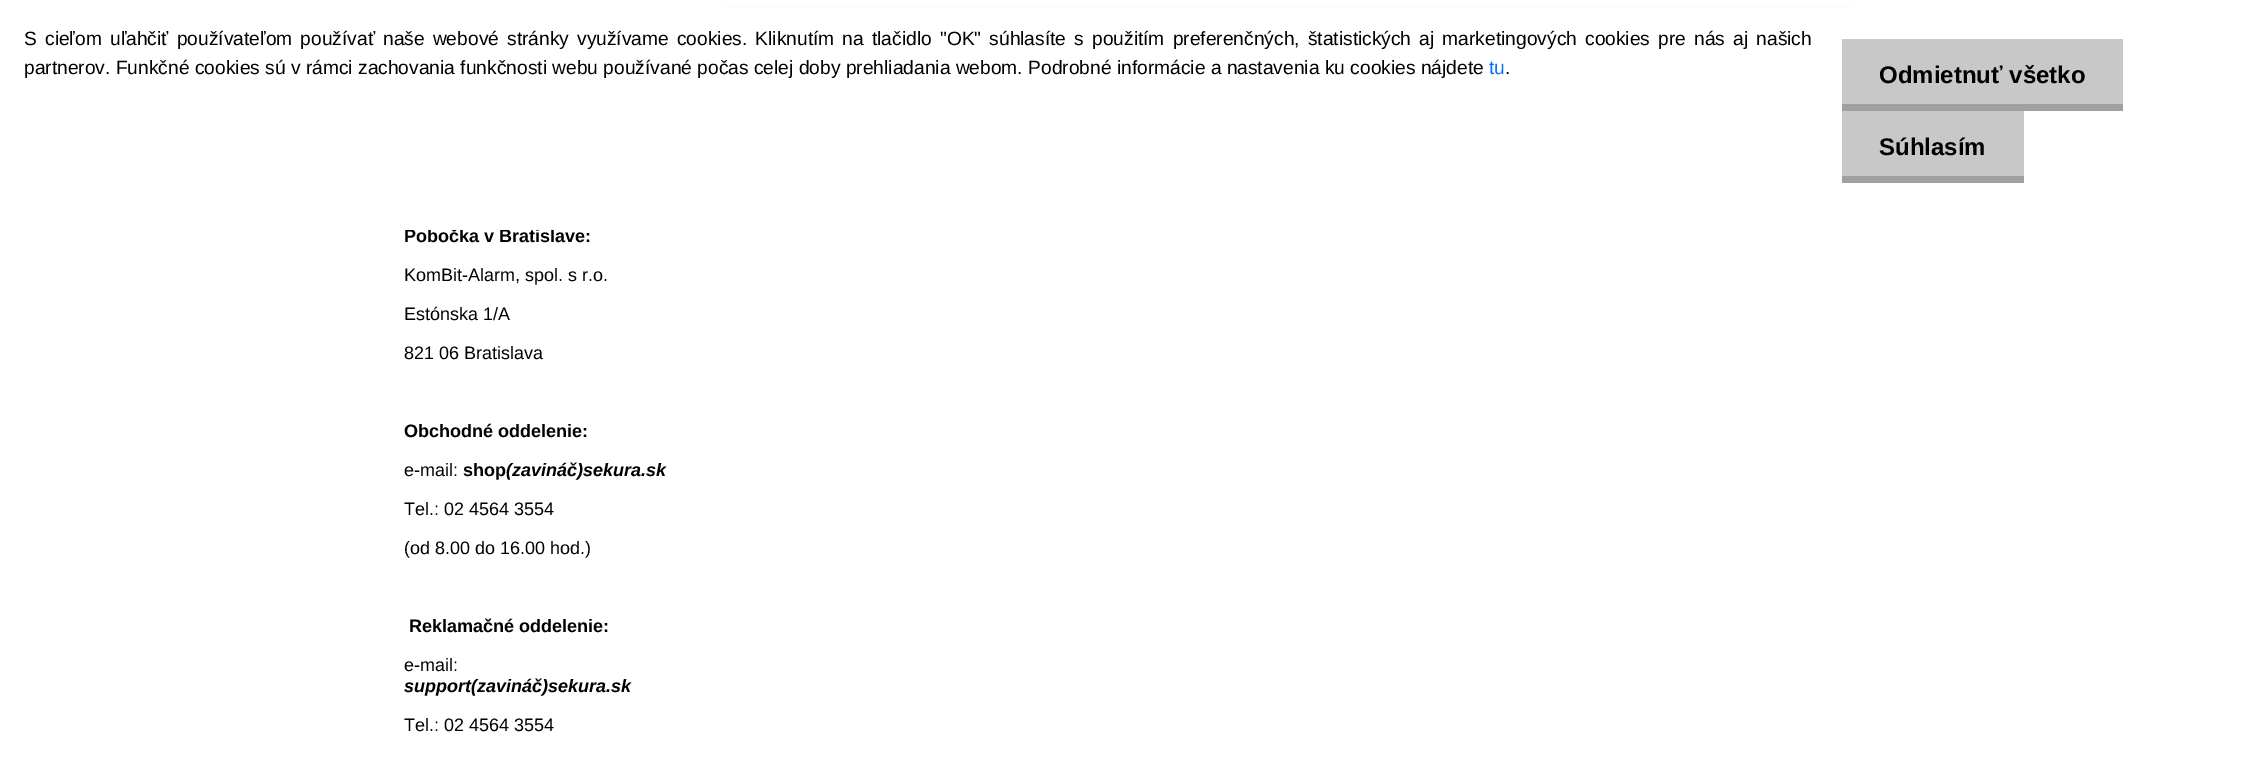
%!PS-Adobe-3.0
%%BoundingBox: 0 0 2262 771
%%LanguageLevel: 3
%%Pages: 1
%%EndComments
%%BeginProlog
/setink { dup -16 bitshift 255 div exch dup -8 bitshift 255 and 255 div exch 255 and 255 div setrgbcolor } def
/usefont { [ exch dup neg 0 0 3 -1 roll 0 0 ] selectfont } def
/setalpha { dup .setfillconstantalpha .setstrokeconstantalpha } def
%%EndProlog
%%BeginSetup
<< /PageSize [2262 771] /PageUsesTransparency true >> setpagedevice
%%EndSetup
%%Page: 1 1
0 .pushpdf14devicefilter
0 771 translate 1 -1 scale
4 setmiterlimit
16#FFFFFF setink
0 0 2262 771 rectfill
16#D0D0D0 setink
726 3 1125 6 rectfill
/LiberationSans-Bold 18 usefont
16#000000 setink
404 242 moveto (Pobočka v Bratislave:) show
0.95 setalpha
16#FFFFFF setink
404 3 1447 227 rectfill
/LiberationSans-Regular 19.2 usefont
1 setalpha
16#000000 setink
24 45 moveto 2.8 0 32 (S cieľom uľahčiť používateľom používať naše webové stránky využívame cookies. Kliknutím na tlačidlo "OK" súhlasíte s použitím preferenčných, štatistických aj marketingových cookies pre nás aj našich) widthshow
24 74 moveto (partnerov. Funkčné cookies sú v rámci zachovania funkčnosti webu používané počas celej doby prehliadania webom. Podrobné informácie a nastavenia ku cookies nájdete) show
16#0D6EFD setink
1489 74 moveto (tu) show
16#000000 setink
1505 74 moveto (.) show
16#C8C8C8 setink
1842 39 281 65 rectfill
16#A0A0A0 setink
1842 104 281 7 rectfill
/LiberationSans-Bold 24 usefont
16#000000 setink
1879 83 moveto (Odmietnuť všetko) show
16#C8C8C8 setink
1842 111 182 65 rectfill
16#A0A0A0 setink
1842 176 182 7 rectfill
16#000000 setink
1879 155 moveto (Súhlasím) show
/LiberationSans-Regular 18 usefont
[
    [(KomBit-Alarm, spol. s r.o.) 404 281]
    [(Estónska 1/A) 404 320]
    [(821 06 Bratislava) 404 359]
] { aload pop moveto show } forall
/LiberationSans-Bold 18 usefont
404 437 moveto (Obchodné oddelenie:) show
/LiberationSans-Regular 18 usefont
404 476 moveto (e-mail:) show
/LiberationSans-Bold 18 usefont
463 476 moveto (shop) show
/LiberationSans-BoldItalic 18 usefont
506 476 moveto (\(zavináč\)sekura.sk) show
/LiberationSans-Regular 18 usefont
404 515 moveto (Tel.: 02 4564 3554) show
404 554 moveto (\(od 8.00 do 16.00 hod.\)) show
/LiberationSans-Bold 18 usefont
409 632 moveto (Reklamačné oddelenie:) show
/LiberationSans-Regular 18 usefont
404 671 moveto (e-mail:) show
/LiberationSans-BoldItalic 18 usefont
404 692 moveto (support\(zavináč\)sekura.sk) show
/LiberationSans-Regular 18 usefont
404 731 moveto (Tel.: 02 4564 3554) show
.poppdf14devicefilter showpage
%%EOF
